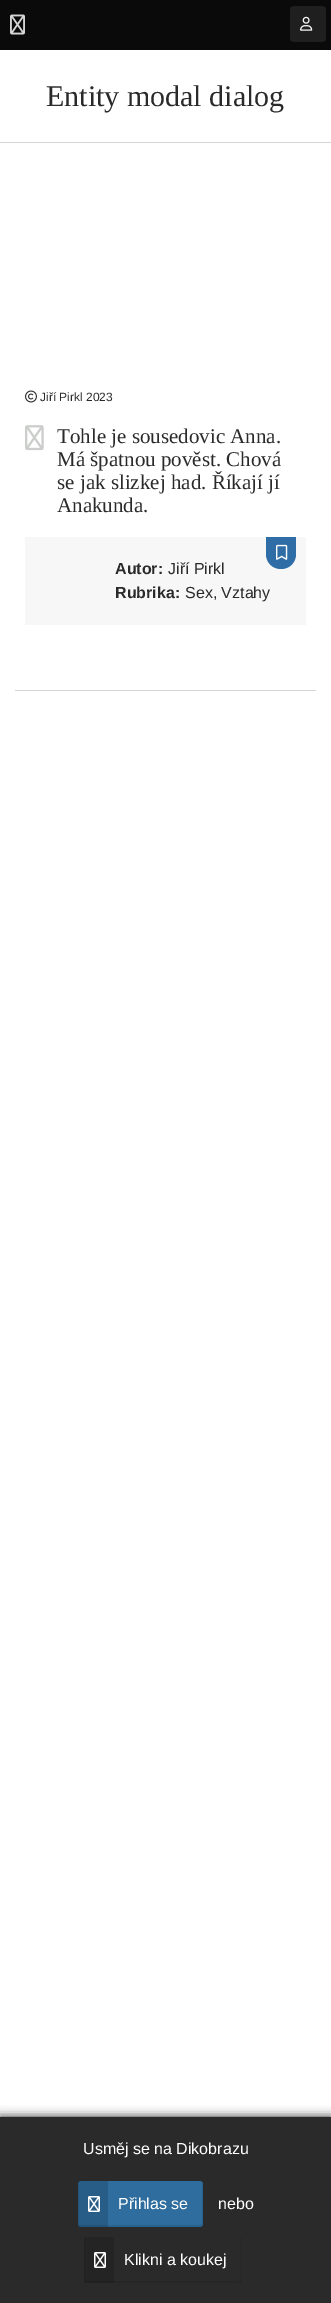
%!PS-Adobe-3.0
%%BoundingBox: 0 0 331 2303
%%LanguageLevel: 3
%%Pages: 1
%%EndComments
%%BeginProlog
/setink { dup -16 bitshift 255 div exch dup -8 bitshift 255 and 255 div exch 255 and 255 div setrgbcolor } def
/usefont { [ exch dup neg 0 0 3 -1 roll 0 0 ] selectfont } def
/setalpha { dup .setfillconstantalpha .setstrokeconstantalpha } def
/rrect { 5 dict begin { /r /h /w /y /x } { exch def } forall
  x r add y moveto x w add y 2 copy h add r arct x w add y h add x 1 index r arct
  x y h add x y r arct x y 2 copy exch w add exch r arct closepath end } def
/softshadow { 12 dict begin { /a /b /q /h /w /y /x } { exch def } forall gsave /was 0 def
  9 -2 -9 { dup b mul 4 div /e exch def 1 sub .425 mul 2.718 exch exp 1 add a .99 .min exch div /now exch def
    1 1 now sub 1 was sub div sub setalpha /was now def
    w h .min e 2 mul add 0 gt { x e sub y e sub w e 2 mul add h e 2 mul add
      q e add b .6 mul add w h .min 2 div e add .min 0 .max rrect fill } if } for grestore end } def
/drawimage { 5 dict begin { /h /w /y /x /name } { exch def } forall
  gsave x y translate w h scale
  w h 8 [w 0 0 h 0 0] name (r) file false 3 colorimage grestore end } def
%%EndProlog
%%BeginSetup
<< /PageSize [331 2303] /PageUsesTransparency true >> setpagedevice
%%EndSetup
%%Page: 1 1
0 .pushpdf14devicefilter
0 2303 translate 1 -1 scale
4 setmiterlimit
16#FFFFFF setink
0 0 331 2303 rectfill
16#0A0A0A setink
0 0 331 50 rectfill
(img1.raw) 10 14 15 21 drawimage
16#1F1F1F setink
290 6 36 36 4 rrect fill
(img2.raw) 300 16 13 15 drawimage
/LiberationSerif-Regular 30 usefont
16#2A2A2A setink
46 106 moveto (Entity modal dialog) show
16#D5D5D5 setink
0 142 331 1 rectfill
(img3.raw) 25 390 12 13 drawimage
/LiberationSans-Regular 12 usefont
16#2A2A2A setink
40 401 moveto (Jiří Pirkl 2023) show
(img4.raw) 25 425 19 26 drawimage
/LiberationSerif-Regular 21 usefont
[
    [(Tohle je sousedovic Anna.) 57 443]
    [(Má špatnou pověst. Chová) 57 466]
    [(se jak slizkej had. Říkají jí) 57 489]
    [(Anakunda.) 57 512]
] { aload pop moveto show } forall
16#F7F7F7 setink
25 537 281 88 rectfill
16#2E6DA6 setink
266 537 moveto 296 537 lineto 296 554 lineto 296 562.5 289.5 569 281 569 curveto 272.5 569 266 562.5 266 554 curveto closepath fill
(img5.raw) 276 544 12 16 drawimage
/LiberationSans-Bold 16 usefont
16#2A2A2A setink
115 574 moveto (Autor:) show
/LiberationSans-Regular 16 usefont
168 574 moveto (Jiří Pirkl) show
/LiberationSans-Bold 16 usefont
115 598 moveto (Rubrika:) show
/LiberationSans-Regular 16 usefont
185 598 moveto (Sex, Vztahy) show
16#D5D5D5 setink
15 690 301 1 rectfill
16#1F1F1F setink
0 2117 331 186 0 5 1 softshadow
16#2A2A2A setink
0 2117 331 186 rectfill
16#FFFFFF setink
83 2154 moveto (Usměj se na Dikobrazu) show
16#2E6D9D setink
78 2181 125 46 3 rrect fill
0.1 setalpha
16#000000 setink
81 2181 moveto 79 2181 78 2182 78 2184 curveto 78 2224 lineto 78 2226 79 2227 81 2227 curveto 200 2227 lineto 202 2227 203 2226 203 2224 curveto 203 2184 lineto 203 2182 202 2181 200 2181 curveto 201 2181 202 2182 202 2183 curveto 202 2223 lineto 202 2224 201 2225 200 2225 curveto 81 2225 lineto 80 2225 79 2224 79 2223 curveto 79 2183 lineto 79 2182 80 2181 81 2181 curveto closepath fill
0.15 setalpha
81 2181 moveto 108 2181 lineto 108 2227 lineto 81 2227 lineto 79.5 2227 78 2225.5 78 2224 curveto 78 2184 lineto 78 2182.5 79.5 2181 81 2181 curveto closepath fill
1 setalpha
(img6.raw) 88 2196 12 16 drawimage
16#FFFFFF setink
118 2209 moveto (Přihlas se) show
218 2209 moveto (nebo) show
16#262626 setink
87 2237 moveto 85 2237 84 2238 84 2240 curveto 84 2280 lineto 84 2282 85 2283 87 2283 curveto 239 2283 lineto 241 2283 242 2282 242 2280 curveto 242 2240 lineto 242 2238 241 2237 239 2237 curveto 240 2237 241 2238 241 2239 curveto 241 2279 lineto 241 2280 240 2281 239 2281 curveto 87 2281 lineto 86 2281 85 2280 85 2279 curveto 85 2239 lineto 85 2238 86 2237 87 2237 curveto closepath fill
0.15 setalpha
16#000000 setink
87 2237 moveto 114 2237 lineto 114 2283 lineto 87 2283 lineto 85.5 2283 84 2281.5 84 2280 curveto 84 2240 lineto 84 2238.5 85.5 2237 87 2237 curveto closepath fill
1 setalpha
(img7.raw) 94 2252 12 16 drawimage
16#FFFFFF setink
124 2265 moveto (Klikni a koukej) show
.poppdf14devicefilter showpage
%%EOF
